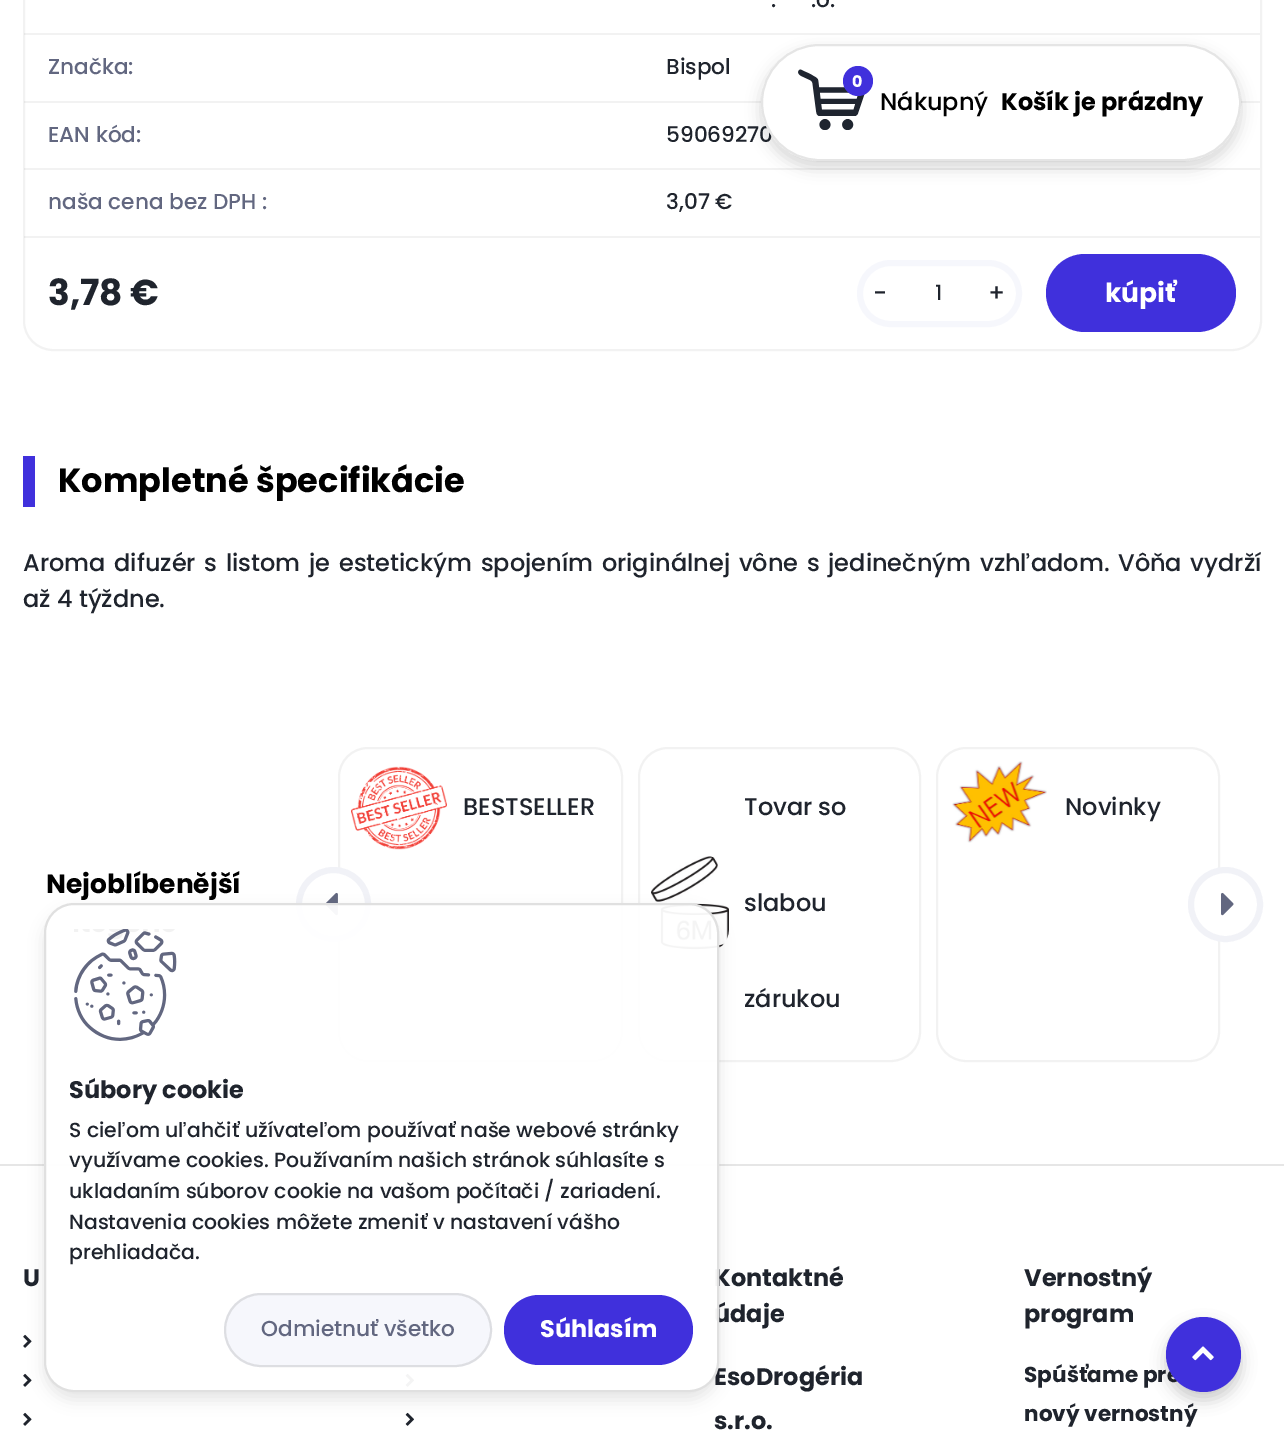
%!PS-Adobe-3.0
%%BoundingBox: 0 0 1284 1435
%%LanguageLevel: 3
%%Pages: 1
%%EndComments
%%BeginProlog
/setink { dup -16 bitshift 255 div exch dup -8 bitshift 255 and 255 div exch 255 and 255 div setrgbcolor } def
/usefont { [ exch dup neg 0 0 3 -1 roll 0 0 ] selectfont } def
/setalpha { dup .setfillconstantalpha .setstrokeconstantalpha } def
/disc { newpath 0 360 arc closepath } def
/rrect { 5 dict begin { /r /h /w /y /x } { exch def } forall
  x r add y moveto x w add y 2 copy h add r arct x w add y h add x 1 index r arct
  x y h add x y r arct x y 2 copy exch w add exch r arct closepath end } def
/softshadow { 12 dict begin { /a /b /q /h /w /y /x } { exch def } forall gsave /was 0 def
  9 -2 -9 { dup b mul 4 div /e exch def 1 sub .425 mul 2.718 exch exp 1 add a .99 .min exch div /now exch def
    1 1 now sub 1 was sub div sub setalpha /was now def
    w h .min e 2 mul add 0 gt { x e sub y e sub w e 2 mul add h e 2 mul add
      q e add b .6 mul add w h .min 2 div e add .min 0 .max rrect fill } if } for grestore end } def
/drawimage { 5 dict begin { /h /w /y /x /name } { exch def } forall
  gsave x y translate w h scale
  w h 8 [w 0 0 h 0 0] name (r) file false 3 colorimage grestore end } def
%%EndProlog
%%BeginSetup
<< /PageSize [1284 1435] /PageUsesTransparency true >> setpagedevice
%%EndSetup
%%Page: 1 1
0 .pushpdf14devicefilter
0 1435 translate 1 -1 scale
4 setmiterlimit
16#FFFFFF setink
0 0 1284 1435 rectfill
16#F2F2F2 setink
2 setlinewidth
24 -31 1237 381 29 rrect stroke
0.05 setalpha
16#000000 setink
24 33 1236 2 rectfill
/Poppins-Medium 21.6 usefont
1 setalpha
16#1F242D setink
771 7 moveto (.) show
811 7 moveto (.o.) show
0.05 setalpha
16#000000 setink
24 101 1236 2 rectfill
1 setalpha
16#626780 setink
48 74 moveto (Značka:) show
16#1F242D setink
666 74 moveto (Bispol) show
0.05 setalpha
16#000000 setink
24 168 1236 2 rectfill
1 setalpha
16#626780 setink
48 142 moveto (EAN kód:) show
16#1F242D setink
666 142 moveto (59069270) show
0.05 setalpha
16#000000 setink
24 236 1236 2 rectfill
1 setalpha
16#626780 setink
48 209 moveto (naša cena bez DPH :) show
16#1F242D setink
666 209 moveto (3,07 €) show
/Poppins-Bold 36 usefont
48 305 moveto (3,78 €) show
16#F6F7FC setink
6 setlinewidth
860 263 159 61 30.5 rrect stroke
/Poppins-Medium 24 usefont
16#1F242D setink
873 301 moveto (-) show
/Poppins-Medium 21 usefont
935 300 moveto (1) show
/Poppins-Medium 24 usefont
988 301 moveto (+) show
16#4030DC setink
1046 254 190 78 39 rrect fill
/Poppins-Bold 26.5 usefont
16#FFFFFF setink
1105 302 moveto (kúpiť) show
16#4030DC setink
23 456 12 51 rectfill
/Poppins-Bold 33.6 usefont
16#000000 setink
58 492 moveto (Kompletné špecifikácie) show
/Poppins-Medium 24 usefont
16#1F242D setink
23 571 moveto 2.4 0 32 (Aroma difuzér s listom je estetickým spojením originálnej vône s jedinečným vzhľadom. Vôňa vydrží) widthshow
23 607 moveto (až 4 týždne.) show
/Poppins-Bold 26.5 usefont
16#000000 setink
46 893 moveto (Nejoblíbenější) show
16#F2F2F2 setink
2 setlinewidth
339 748 283 313 29 rrect stroke
(img1.raw) 351 766 96 84 drawimage
/Poppins-Medium 24 usefont
16#1F242D setink
463 815 moveto (BESTSELLER) show
16#F2F2F2 setink
639 748 281 313 29 rrect stroke
(img2.raw) 651 856 78 94 drawimage
16#1F242D setink
[
    [(Tovar so) 744 815]
    [(slabou) 744 911]
    [(zárukou) 744 1007]
] { aload pop moveto show } forall
16#F2F2F2 setink
937 748 282 313 29 rrect stroke
(img3.raw) 952 761 95 82 drawimage
16#1F242D setink
1065 815 moveto (Novinky) show
16#FFFFFF setink
333.5 904.5 34.5 disc gsave fill grestore
16#F1F2F7 setink
6 setlinewidth
stroke
(img4.raw) 325 892 13 24 drawimage
16#FFFFFF setink
1225.5 904.5 34.5 disc gsave fill grestore
16#F1F2F7 setink
stroke
(img5.raw) 1221 892 13 24 drawimage
16#E6E6E6 setink
0 1164 1284 2 rectfill
/Poppins-Bold 24 usefont
16#1F242D setink
23 1286 moveto (U) show
(img6.raw) 23 1334 9 14 drawimage
(img6.raw) 23 1373 9 14 drawimage
(img6.raw) 23 1412 9 14 drawimage
[
    [(Kontaktné) 714 1286]
    [(údaje) 714 1322]
    [(EsoDrogéria) 714 1385]
    [(s.r.o.) 714 1429]
    [(Vernostný) 1024 1286]
    [(program) 1024 1322]
] { aload pop moveto show } forall
/Poppins-Bold 21.6 usefont
1024 1382 moveto (Spúšťame pre) show
1024 1421 moveto (nový vernostný) show
(img7.raw) 405 1373 9 14 drawimage
(img7.raw) 405 1412 9 14 drawimage
16#000000 setink
761 51 480 117 58.5 7.5 0.15 softshadow
16#FFFFFF setink
761 44 480 117 58.5 rrect fill
0.1 setalpha
16#000000 setink
2 setlinewidth
762 45 478 115 57.5 rrect stroke
1 setalpha
(img8.raw) 798 69 67 61 drawimage
16#4030DC setink
858 81 15 disc fill
/Poppins-Bold 16 usefont
16#FFFFFF setink
852 87 moveto (0) show
/Poppins-Medium 24 usefont
16#000000 setink
880 110 moveto (Nákupný) show
/Poppins-Bold 24 usefont
1001 110 moveto (Košík je prázdny) show
gsave
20 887 moveto 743 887 lineto 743 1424 lineto 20 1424 lineto closepath 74 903 moveto 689 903 lineto 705.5 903 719 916.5 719 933 curveto 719 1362 lineto 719 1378.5 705.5 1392 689 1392 curveto 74 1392 lineto 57.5 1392 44 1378.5 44 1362 curveto 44 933 lineto 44 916.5 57.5 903 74 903 curveto closepath eoclip newpath
44 911 675 489 30 7.5 0.1 softshadow
grestore
0.95 setalpha
16#FFFFFF setink
45 904 673 487 29 rrect fill
1 setalpha
16#E0E0E0 setink
45 904 673 487 29 rrect stroke
(img9.raw) 74 929 103 112 drawimage
16#1F242D setink
69 1098 moveto (Súbory cookie) show
/Poppins-Medium 20.4 usefont
[
    [(S cieľom uľahčiť užívateľom používať naše webové stránky) 69 1137]
    [(využívame cookies. Používaním našich stránok súhlasíte s) 69 1167]
    [(ukladaním súborov cookie na vašom počítači / zariadení.) 69 1198]
    [(Nastavenia cookies môžete zmeniť v nastavení vášho) 69 1229]
    [(prehliadača.) 69 1259]
] { aload pop moveto show } forall
16#F6F7FC setink
224 1293 268 74 37 rrect fill
0.1 setalpha
16#000000 setink
225 1294 266 72 36 rrect stroke
/Poppins-Medium 21.6 usefont
1 setalpha
16#626780 setink
261 1336 moveto (Odmietnuť všetko) show
16#4030DC setink
504 1295 189 70 35 rrect fill
/Poppins-Bold 24 usefont
16#FFFFFF setink
540 1337 moveto (Súhlasím) show
16#000000 setink
1166 1325 75 75 37.5 7.5 0.2 softshadow
16#4030DC setink
1203.5 1354.5 37.5 disc fill
(img10.raw) 1192 1346 22 15 drawimage
.poppdf14devicefilter showpage
%%EOF
